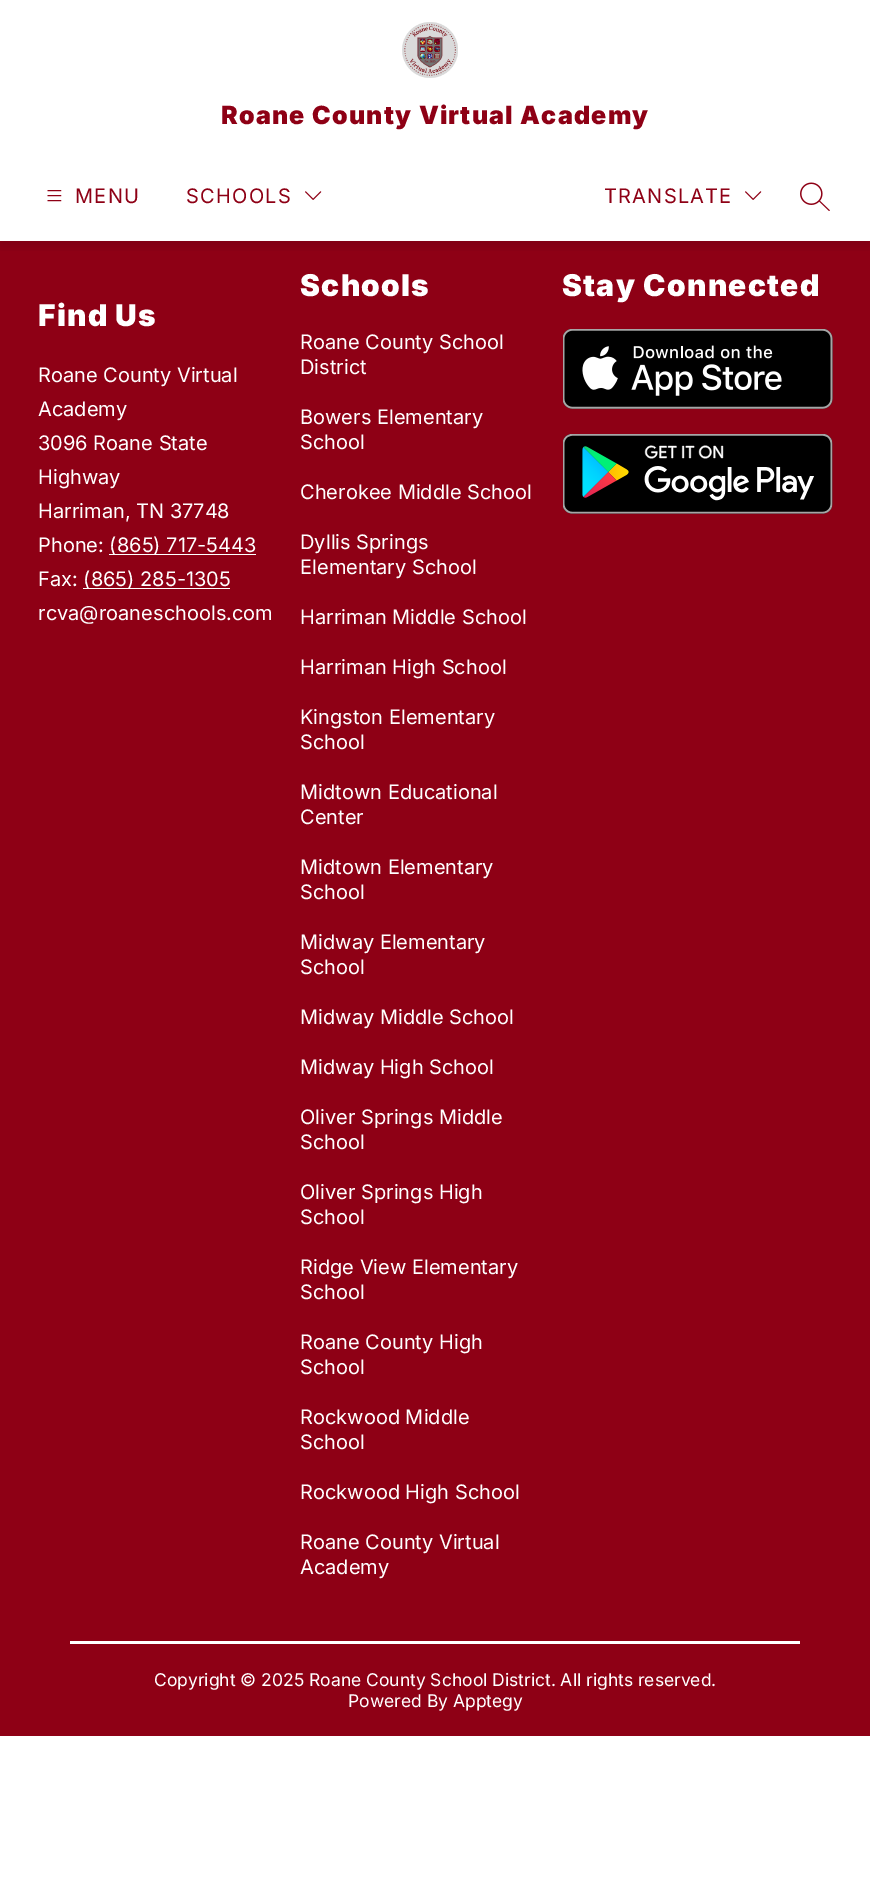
%!PS-Adobe-3.0
%%BoundingBox: 0 0 870 1904
%%LanguageLevel: 3
%%Pages: 1
%%EndComments
%%BeginProlog
/setink { dup -16 bitshift 255 div exch dup -8 bitshift 255 and 255 div exch 255 and 255 div setrgbcolor } def
/usefont { [ exch dup neg 0 0 3 -1 roll 0 0 ] selectfont } def
/setalpha { dup .setfillconstantalpha .setstrokeconstantalpha } def
/rrect { 5 dict begin { /r /h /w /y /x } { exch def } forall
  x r add y moveto x w add y 2 copy h add r arct x w add y h add x 1 index r arct
  x y h add x y r arct x y 2 copy exch w add exch r arct closepath end } def
/softshadow { 12 dict begin { /a /b /q /h /w /y /x } { exch def } forall gsave /was 0 def
  9 -2 -9 { dup b mul 4 div /e exch def 1 sub .425 mul 2.718 exch exp 1 add a .99 .min exch div /now exch def
    1 1 now sub 1 was sub div sub setalpha /was now def
    w h .min e 2 mul add 0 gt { x e sub y e sub w e 2 mul add h e 2 mul add
      q e add b .6 mul add w h .min 2 div e add .min 0 .max rrect fill } if } for grestore end } def
/drawimage { 5 dict begin { /h /w /y /x /name } { exch def } forall
  gsave x y translate w h scale
  w h 8 [w 0 0 h 0 0] name (r) file false 3 colorimage grestore end } def
%%EndProlog
%%BeginSetup
<< /PageSize [870 1904] /PageUsesTransparency true >> setpagedevice
%%EndSetup
%%Page: 1 1
0 .pushpdf14devicefilter
0 1904 translate 1 -1 scale
4 setmiterlimit
16#FFFFFF setink
0 0 870 1904 rectfill
16#8E0015 setink
0 241 870 1495 rectfill
gsave
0 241 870 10 rectclip
16#000000 setink
0 5 870 241 0 6 0.1 softshadow
grestore
(img1.raw) 402 22 56 56 drawimage
/Inter-Black 25 usefont
221 124 moveto 1.25 0 (Roane County Virtual Academy) ashow
(img2.raw) 47 190 15 12 drawimage
/Inter-Regular 20 usefont
75 203 moveto 1.25 0 (MENU) ashow
186 203 moveto 1.25 0 (SCHOOLS) ashow
(img3.raw) 305 191 17 9 drawimage
604 203 moveto 1.25 0 (TRANSLATE) ashow
(img3.raw) 745 191 17 9 drawimage
(img4.raw) 800 182 30 29 drawimage
/Inter-Black 30 usefont
16#FFFFFF setink
300 296 moveto 1.25 0 (Schools) ashow
/Inter-Regular 20 usefont
[
    [(Roane County School) 300 349]
    [(District) 300 374]
    [(Bowers Elementary) 300 424]
    [(School) 300 449]
    [(Cherokee Middle School) 300 499]
    [(Dyllis Springs) 300 549]
    [(Elementary School) 300 574]
    [(Harriman Middle School) 300 624]
    [(Harriman High School) 300 674]
    [(Kingston Elementary) 300 724]
    [(School) 300 749]
    [(Midtown Educational) 300 799]
    [(Center) 300 824]
    [(Midtown Elementary) 300 874]
    [(School) 300 899]
    [(Midway Elementary) 300 949]
    [(School) 300 974]
    [(Midway Middle School) 300 1024]
    [(Midway High School) 300 1074]
    [(Oliver Springs Middle) 300 1124]
    [(School) 300 1149]
    [(Oliver Springs High) 300 1199]
    [(School) 300 1224]
    [(Ridge View Elementary) 300 1274]
    [(School) 300 1299]
    [(Roane County High) 300 1349]
    [(School) 300 1374]
    [(Rockwood Middle) 300 1424]
    [(School) 300 1449]
    [(Rockwood High School) 300 1499]
    [(Roane County Virtual) 300 1549]
    [(Academy) 300 1574]
] { aload pop moveto show } forall
/Inter-Black 30 usefont
562 296 moveto 1.25 0 (Stay Connected) ashow
(img5.raw) 563 329 270 80 drawimage
(img6.raw) 563 434 270 80 drawimage
38 326 moveto 1.25 0 (Find Us) ashow
/Inter-Regular 20 usefont
[
    [(Roane County Virtual) 38 382]
    [(Academy) 38 416]
    [(3096 Roane State) 38 450]
    [(Highway) 38 484]
    [(Harriman, TN 37748) 38 518]
    [(Phone: \(865\) 717-5443) 38 552]
] { aload pop moveto show } forall
109 554 147 1 rectfill
38 586 moveto (Fax: \(865\) 285-1305) show
83 588 147 1 rectfill
38 620 moveto (rcva@roaneschools.com) show
70 1641 730 3 rectfill
/Inter-Regular 17.5 usefont
154 1686 moveto (Copyright © 2025 Roane County School District. All rights reserved.) show
348 1707 moveto (Powered By Apptegy) show
.poppdf14devicefilter showpage
%%EOF
